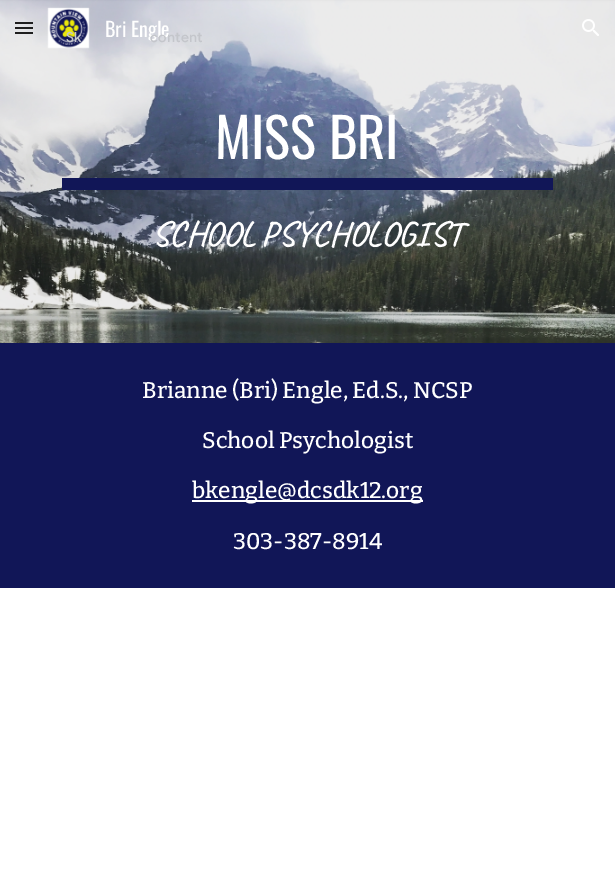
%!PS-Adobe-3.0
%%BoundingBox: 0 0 615 875
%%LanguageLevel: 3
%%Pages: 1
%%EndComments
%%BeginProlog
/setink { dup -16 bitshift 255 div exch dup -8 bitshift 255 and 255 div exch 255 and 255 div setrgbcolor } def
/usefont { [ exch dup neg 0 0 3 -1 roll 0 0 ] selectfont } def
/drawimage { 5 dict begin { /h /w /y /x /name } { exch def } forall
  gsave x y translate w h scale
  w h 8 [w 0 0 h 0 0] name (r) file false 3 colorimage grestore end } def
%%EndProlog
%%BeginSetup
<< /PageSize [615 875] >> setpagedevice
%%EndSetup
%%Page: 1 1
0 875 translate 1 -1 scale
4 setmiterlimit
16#FFFFFF setink
0 0 615 875 rectfill
(img3.raw) 0 0 615 343 drawimage
[
    [15 22 18 2 16#1F1F1F]
    [15 27 18 2 16#1F1F1F]
    [15 32 18 2 16#1F1F1F]
] { aload pop setink rectfill } forall
(img1.raw) 47 7 43 42 drawimage
/Oswald-Regular 20 usefont
16#FFFFFF setink
105 37 moveto (Bri Engle) show
(img2.raw) 582 19 17 17 drawimage
/Oswald-Regular 54.5 usefont
215 159 moveto (MISS BRI) show
16#111657 setink
62 178 491 12 rectfill
/Caveat-SemiBold 34.75 usefont
16#FFFFFF setink
152 245 moveto -2 0 32 (SCHOOL PSYCHOLOGIST) widthshow
16#111657 setink
0 343 615 245 rectfill
/Bitter-Medium 22.7 usefont
16#FFFFFF setink
142 398 moveto (Brianne \(Bri\) Engle, Ed.S., NCSP) show
202 448 moveto (School Psychologist) show
192 500 231 2 rectfill
192 498 moveto (bkengle@dcsdk12.org) show
233 549 moveto (303-387-8914) show
/GoogleSans-Medium 14 usefont
16#C4C6CB setink
66 42 moveto 0.25 0 (Sk) ashow
150 42 moveto 0.25 0 (content) ashow
showpage
%%EOF
